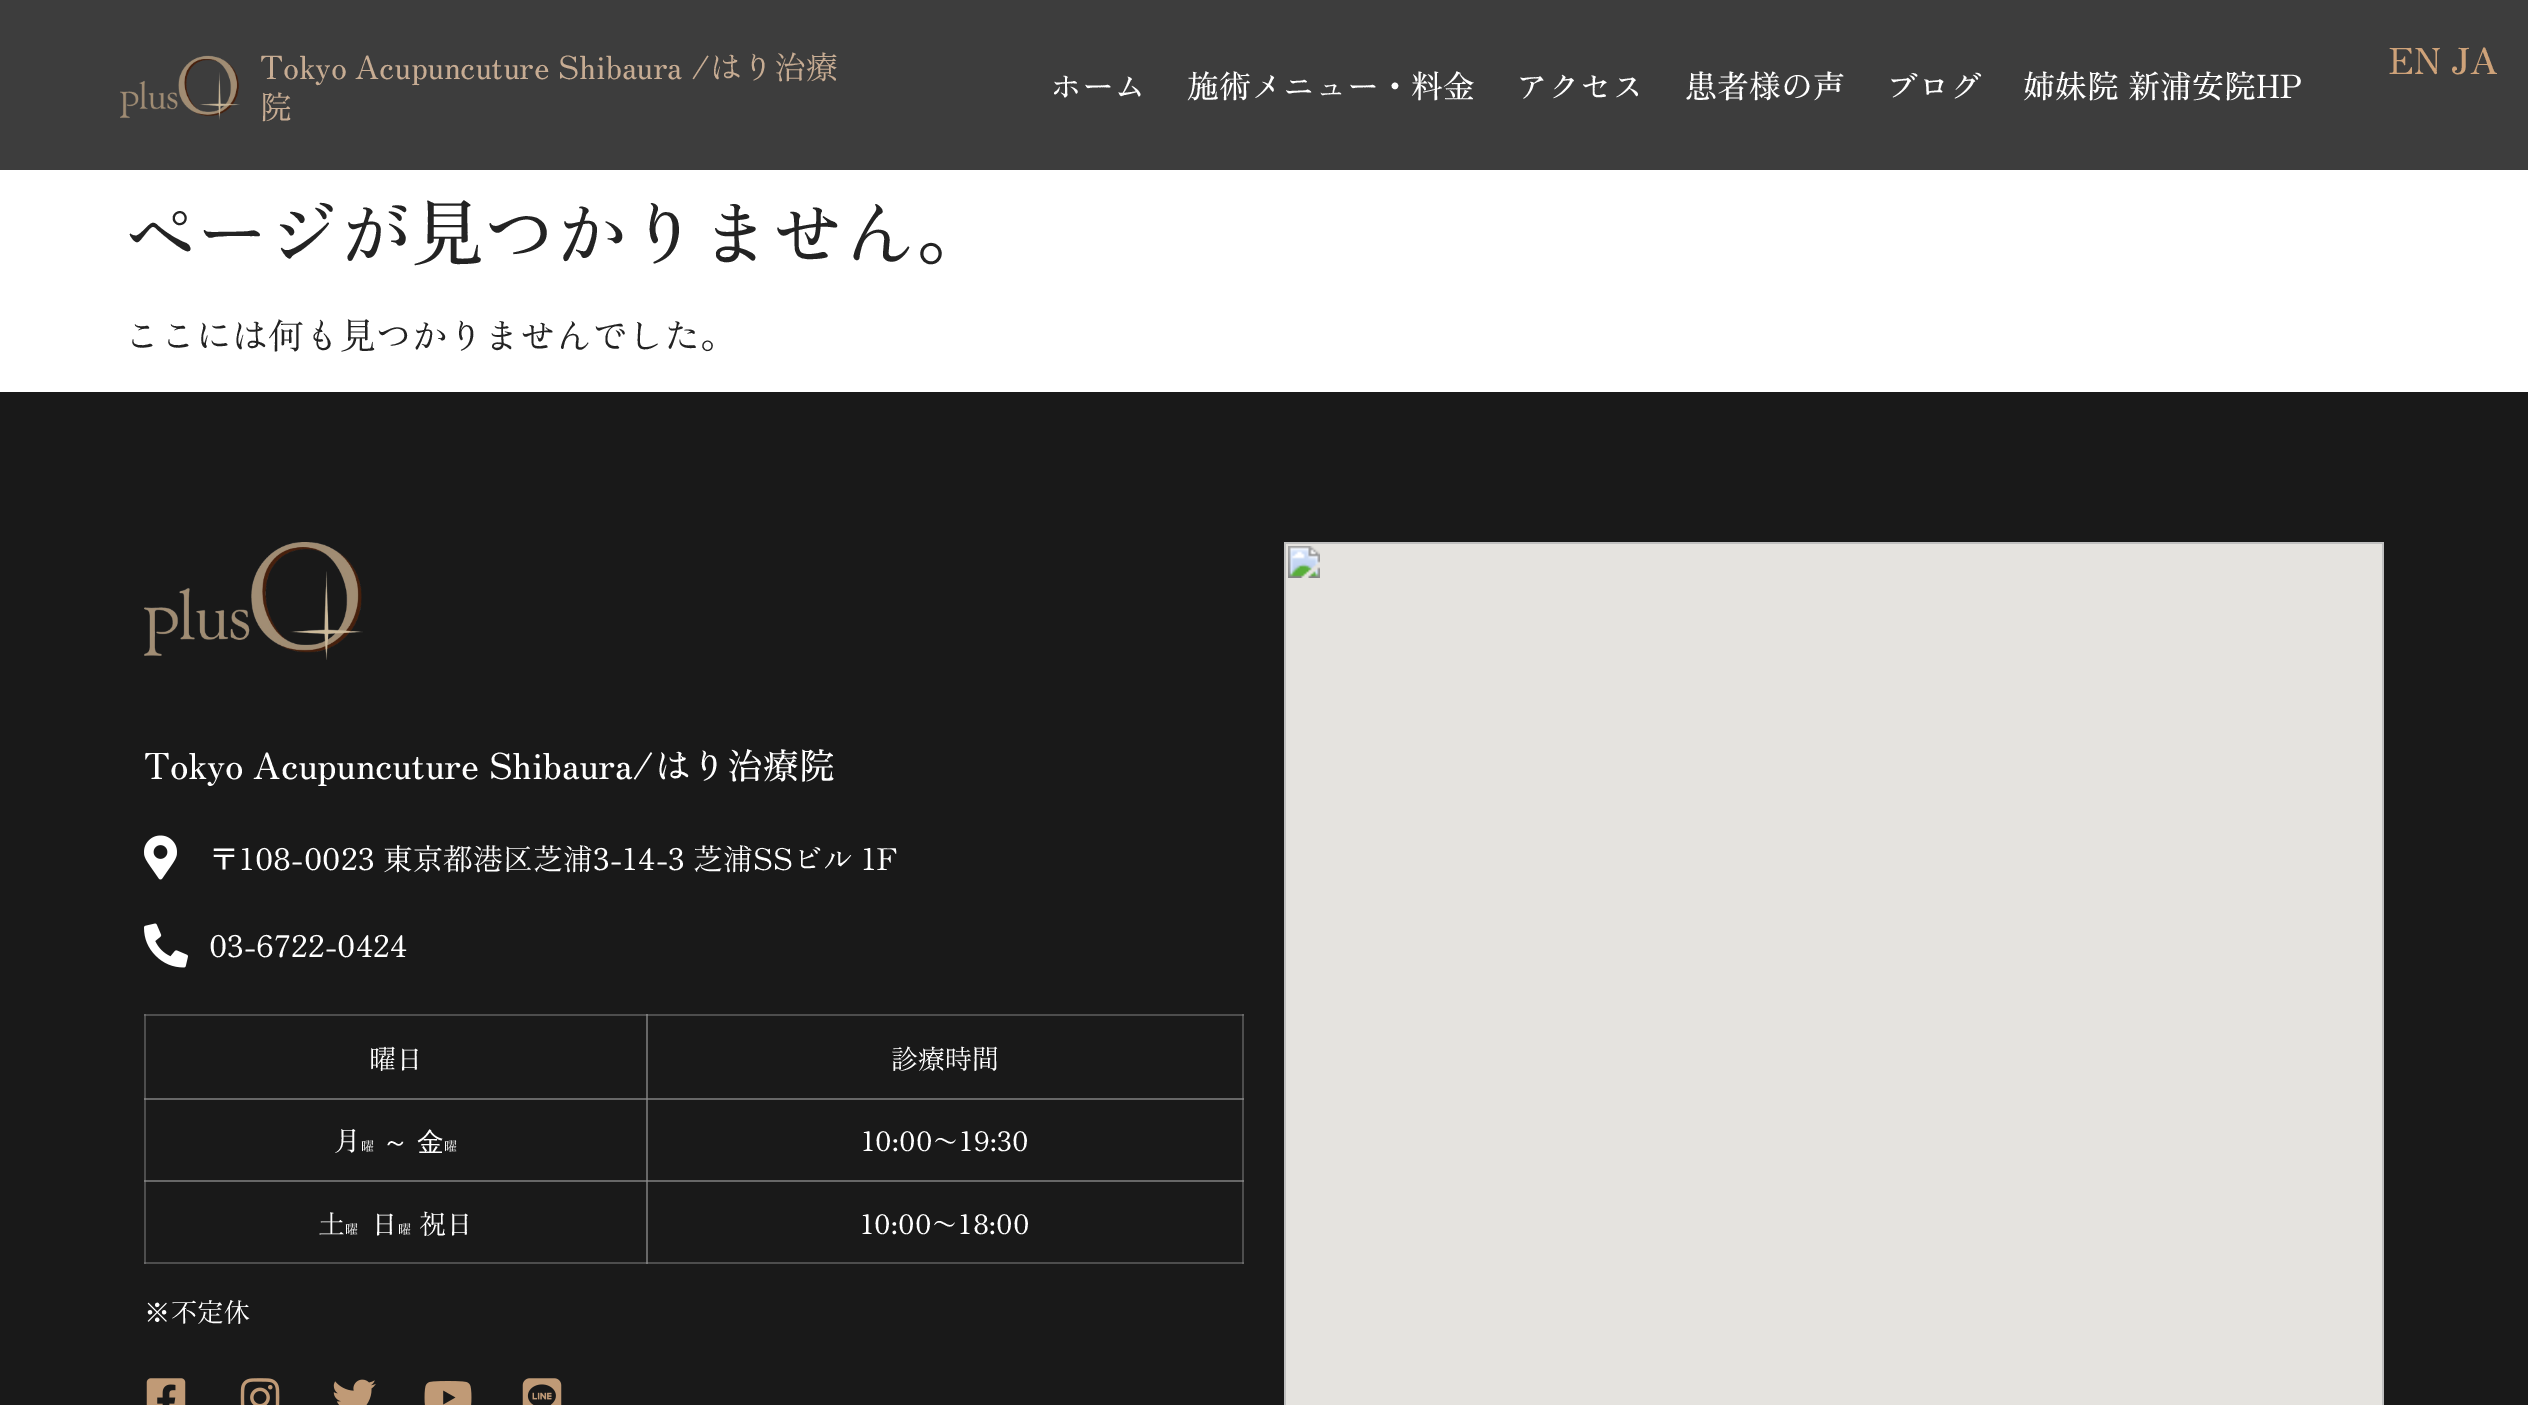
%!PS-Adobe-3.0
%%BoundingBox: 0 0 2528 1405
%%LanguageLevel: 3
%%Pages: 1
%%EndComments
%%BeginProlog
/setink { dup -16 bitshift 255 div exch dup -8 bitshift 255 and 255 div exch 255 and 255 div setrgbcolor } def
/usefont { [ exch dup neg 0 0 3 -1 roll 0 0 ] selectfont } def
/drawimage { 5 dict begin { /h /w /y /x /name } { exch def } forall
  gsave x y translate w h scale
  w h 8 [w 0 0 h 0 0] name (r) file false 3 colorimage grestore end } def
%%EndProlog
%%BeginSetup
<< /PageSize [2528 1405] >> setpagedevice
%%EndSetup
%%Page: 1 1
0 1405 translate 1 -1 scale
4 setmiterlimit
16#FFFFFF setink
0 0 2528 1405 rectfill
16#3D3D3D setink
0 0 2528 170 rectfill
(img1.raw) 120 55 120 65 drawimage
/ZenOldMincho-Regular 32 usefont
16#C7AC93 setink
260 79 moveto (Tokyo Acupuncuture Shibaura /はり治療) show
260 119 moveto (院) show
/ZenOldMincho-Medium 32 usefont
16#FFFFFF setink
[
    [(ホーム) 1050 98]
    [(施術メニュー・料金) 1187 98]
    [(アクセス) 1516 98]
    [(患者様の声) 1685 98]
    [(ブログ) 1886 98]
    [(姉妹院 新浦安院HP) 2023 98]
] { aload pop moveto show } forall
/ZenOldMincho-Regular 36 usefont
16#CEA279 setink
2389 74 moveto (EN) show
/ZenOldMincho-Bold 36 usefont
2451 74 moveto (JA) show
/ZenOldMincho-Medium 72 usefont
16#232323 setink
124 260 moveto (ページが見つかりません。) show
/ZenOldMincho-Regular 36 usefont
124 349 moveto (ここには何も見つかりませんでした。) show
[
    [0 392 2528 1013 16#191919]
    [144 1014 2 250 16#4D4D4D]
    [144 1014 504 2 16#4D4D4D]
    [144 1014 2 2 16#676767]
    [646 1014 2 86 16#676767]
    [1242 1014 2 168 16#4D4D4D]
    [144 1098 504 2 16#676767]
    [144 1098 2 2 16#7A7A7A]
    [646 1098 2 84 16#676767]
    [144 1262 504 2 16#4D4D4D]
    [144 1262 2 2 16#676767]
    [144 1180 504 2 16#676767]
    [144 1180 2 2 16#7A7A7A]
    [646 1180 2 84 16#676767]
    [646 1262 598 2 16#4D4D4D]
    [646 1262 2 2 16#7A7A7A]
    [1242 1180 2 84 16#4D4D4D]
    [1242 1262 2 2 16#676767]
] { aload pop setink rectfill } forall
(img2.raw) 144 542 219 118 drawimage
/ZenOldMincho-Medium 36 usefont
16#FFFFFF setink
144 779 moveto (Tokyo Acupuncuture Shibaura/はり治療院) show
(img3.raw) 144 835 33 45 drawimage
/ZenOldMincho-Regular 30 usefont
209 870 moveto (〒108-0023 東京都港区芝浦3-14-3 芝浦SSビル 1F) show
(img4.raw) 144 923 44 45 drawimage
209 957 moveto (03-6722-0424) show
/ZenOldMincho-Regular 27 usefont
369 1069 moveto (曜日) show
[
    [646 1014 598 2 16#4D4D4D]
    [646 1014 2 2 16#7A7A7A]
    [1242 1014 2 2 16#676767]
] { aload pop setink rectfill } forall
16#FFFFFF setink
891 1069 moveto (診療時間) show
334 1151 moveto (月) show
/ZenOldMincho-Regular 13 usefont
361 1151 moveto (曜) show
/WenQuanYiZenHei-Medium 27 usefont
382 1151 moveto (～) show
417 1151 moveto (金) show
/ZenOldMincho-Regular 13 usefont
444 1151 moveto (曜) show
[
    [646 1098 598 2 16#676767]
    [646 1098 2 2 16#808080]
    [1242 1098 2 2 16#7A7A7A]
] { aload pop setink rectfill } forall
/ZenOldMincho-Regular 27 usefont
16#FFFFFF setink
861 1151 moveto (10:00〜19:30) show
318 1234 moveto (土) show
/ZenOldMincho-Regular 13 usefont
345 1234 moveto (曜) show
/ZenOldMincho-Regular 27 usefont
371 1234 moveto (日) show
/ZenOldMincho-Regular 13 usefont
398 1234 moveto (曜) show
/ZenOldMincho-Regular 27 usefont
419 1234 moveto (祝日) show
[
    [646 1180 598 2 16#676767]
    [646 1180 2 2 16#808080]
    [1242 1180 2 2 16#7A7A7A]
] { aload pop setink rectfill } forall
16#FFFFFF setink
860 1234 moveto (10:00〜18:00) show
/ZenOldMincho-Regular 26.5 usefont
144 1322 moveto (※不定休) show
(img5.raw) 146 1378 40 27 drawimage
(img6.raw) 240 1378 40 27 drawimage
(img7.raw) 333 1379 43 26 drawimage
(img8.raw) 424 1381 48 24 drawimage
(img9.raw) 522 1378 40 27 drawimage
(img10.raw) 1284 542 1100 863 drawimage
showpage
%%EOF
